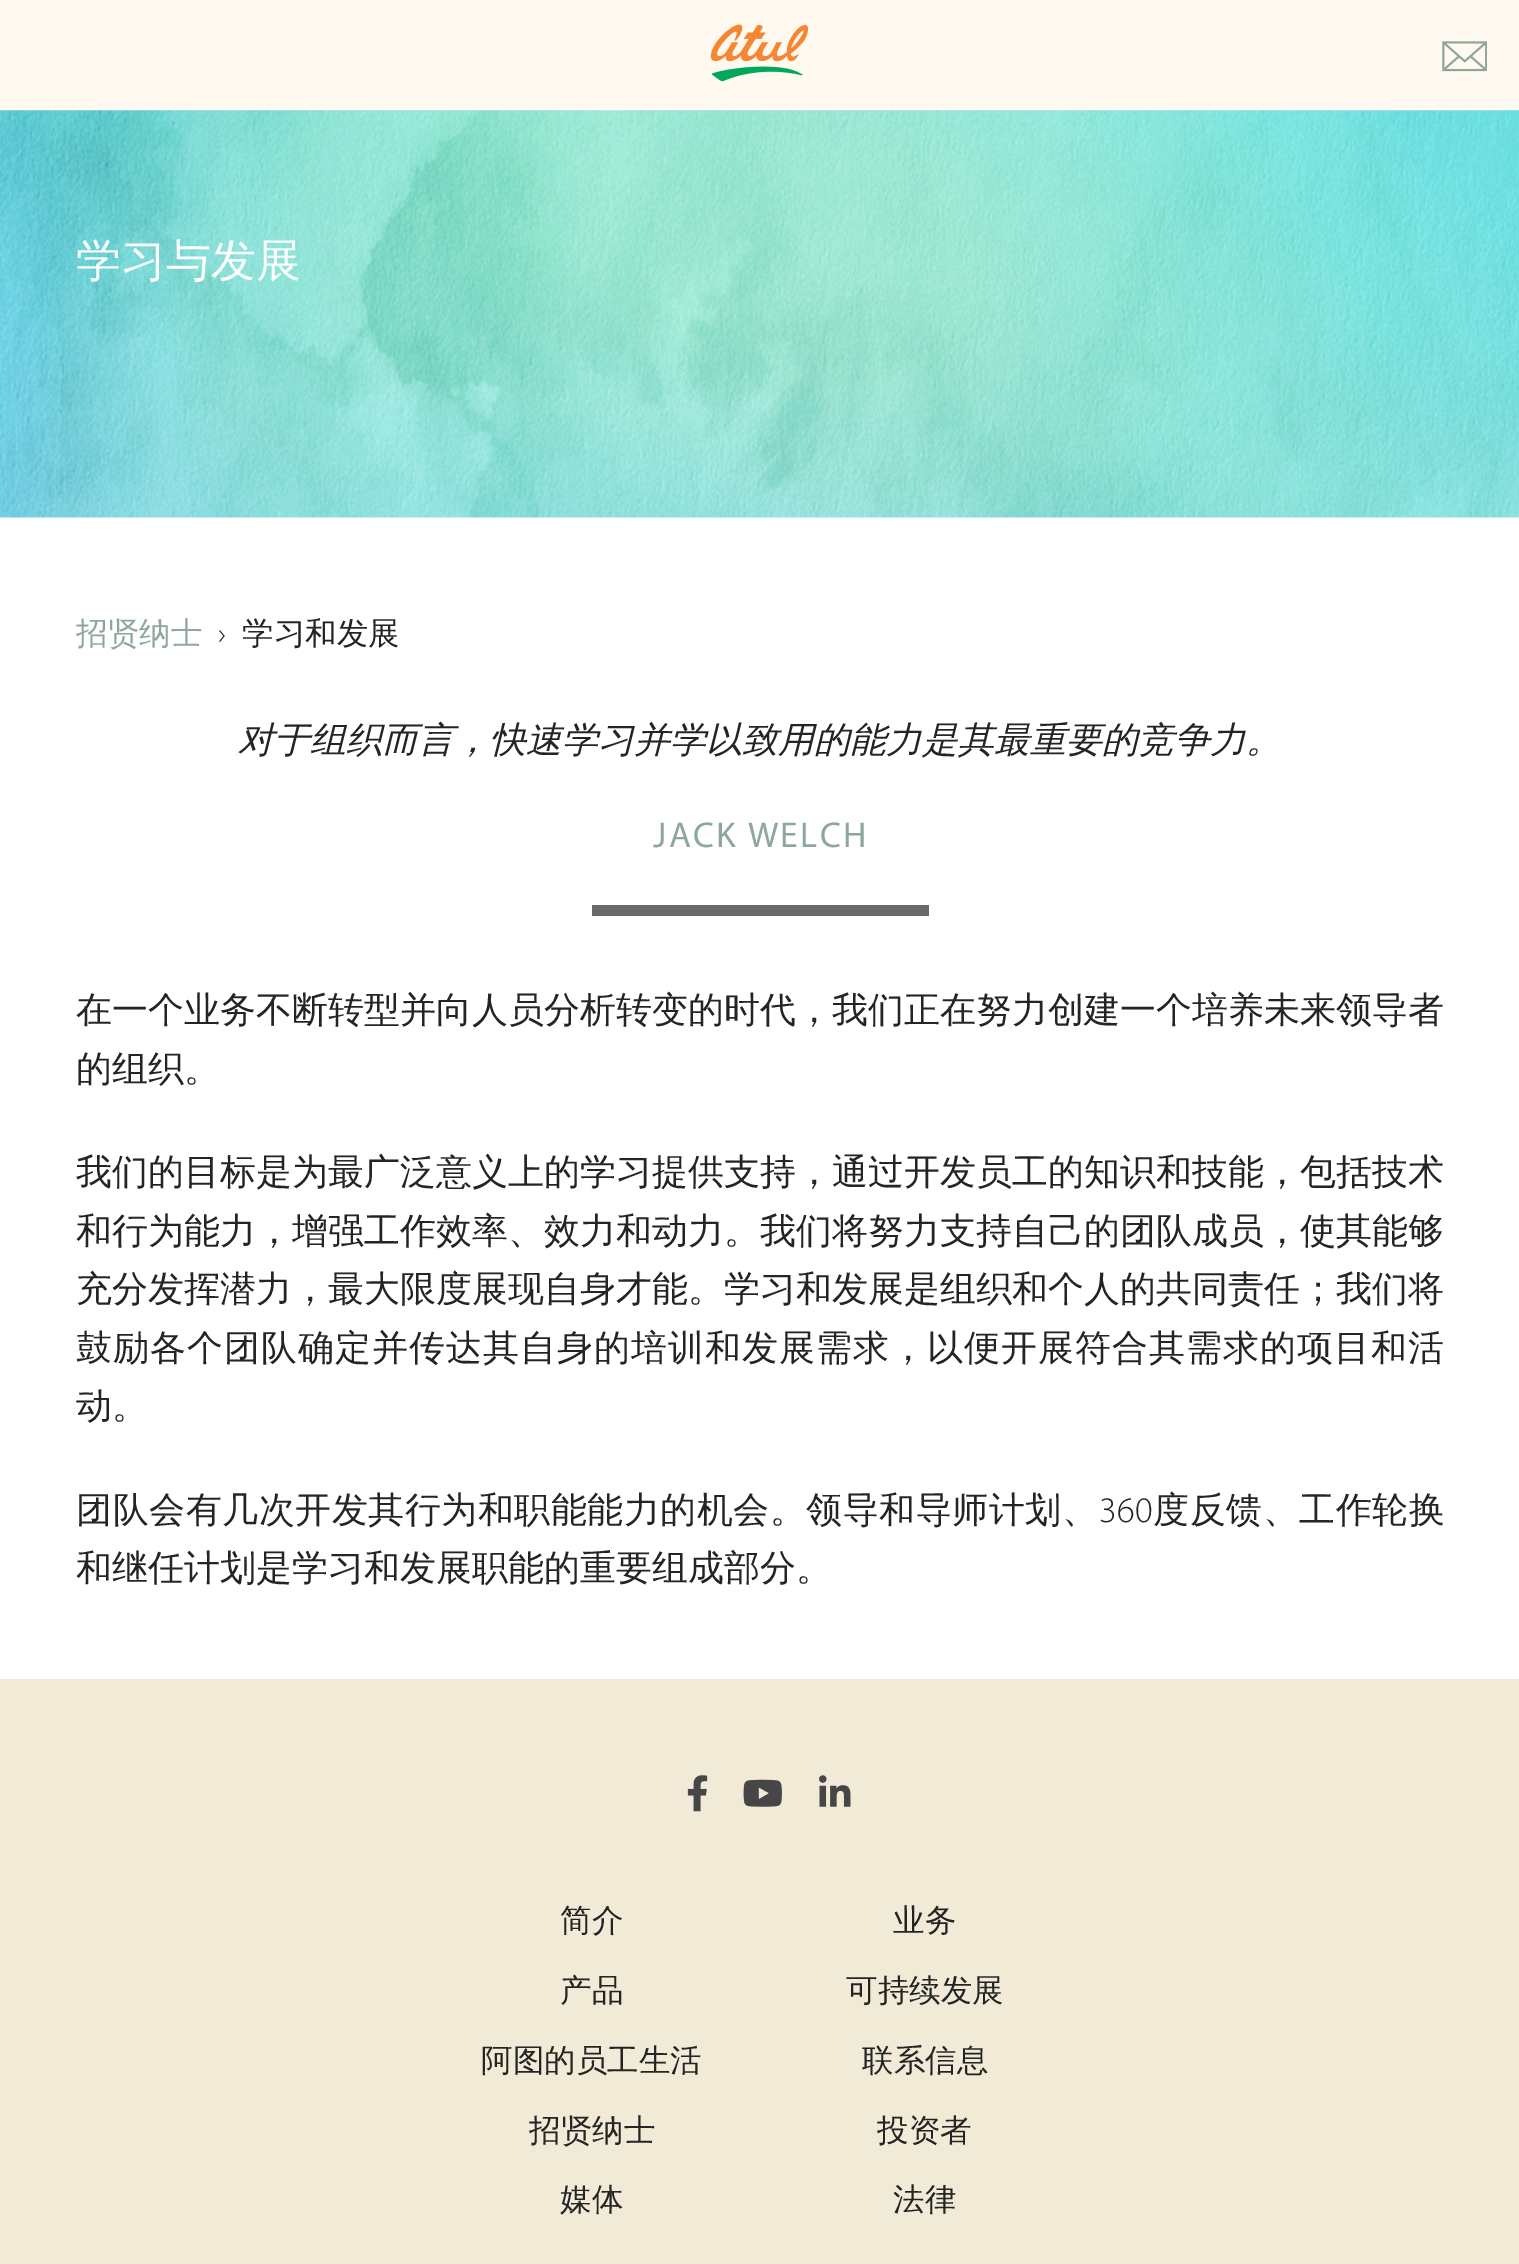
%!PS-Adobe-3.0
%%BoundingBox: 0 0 1519 2264
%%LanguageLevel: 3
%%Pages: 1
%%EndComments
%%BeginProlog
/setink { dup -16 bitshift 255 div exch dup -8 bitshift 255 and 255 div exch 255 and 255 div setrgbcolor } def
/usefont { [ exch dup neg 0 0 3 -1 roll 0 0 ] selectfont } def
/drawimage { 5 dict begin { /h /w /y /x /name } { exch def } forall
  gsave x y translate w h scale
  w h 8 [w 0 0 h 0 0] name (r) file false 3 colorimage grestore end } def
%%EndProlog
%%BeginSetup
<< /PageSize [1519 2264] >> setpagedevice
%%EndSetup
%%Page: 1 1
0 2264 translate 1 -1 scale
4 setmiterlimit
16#FFFFFF setink
0 0 1519 2264 rectfill
16#FFF9EF setink
90 0 1429 108 rectfill
0 0 90 110 rectfill
(img1.raw) 710 24 98 58 drawimage
(img2.raw) 1442 41 45 31 drawimage
(img3.raw) 0 110 1519 408 drawimage
/WenQuanYiZenHei-Medium 45 usefont
16#FFFFFF setink
76 276 moveto (学习与发展) show
/WenQuanYiZenHei-Medium 31.5 usefont
16#8DA79D setink
76 644 moveto (招贤纳士) show
/Myriad-Light 31.5 usefont
16#242424 setink
218 644 moveto (›) show
/WenQuanYiZenHei-Medium 31.5 usefont
242 644 moveto (学习和发展) show
/WenQuanYiZenHei-MediumItalic 36 usefont
238 752 moveto (对于组织而言，快速学习并学以致用的能力是其最重要的竞争力。) show
/Myriad-Regular 36 usefont
16#8DA79D setink
653 847 moveto 2.25 0 (JACK WELCH) ashow
16#696969 setink
592 905 337 11 rectfill
/WenQuanYiZenHei-Medium 36 usefont
16#242424 setink
[
    [(在一个业务不断转型并向人员分析转变的时代，我们正在努力创建一个培养未来领导者) 76 1022]
    [(的组织。) 76 1081]
    [(我们的目标是为最广泛意义上的学习提供支持，通过开发员工的知识和技能，包括技术) 76 1184]
    [(和行为能力，增强工作效率、效力和动力。我们将努力支持自己的团队成员，使其能够) 76 1243]
    [(充分发挥潜力，最大限度展现自身才能。学习和发展是组织和个人的共同责任；我们将) 76 1301]
] { aload pop moveto show } forall
76 1360 moveto 1 0 (鼓励各个团队确定并传达其自身的培训和发展需求，以便开展符合其需求的项目和活) ashow
76 1418 moveto (动。) show
76 1522 moveto 0.5 0 (团队会有几次开发其行为和职能能力的机会。领导和导师计划、) ashow
/Myriad-Light 36 usefont
1099 1522 moveto 0.5 0 (360) ashow
/WenQuanYiZenHei-Medium 36 usefont
1153 1522 moveto 0.5 0 (度反馈、工作轮换) ashow
76 1580 moveto (和继任计划是学习和发展职能的重要组成部分。) show
16#F0EAD7 setink
0 1679 1519 585 rectfill
(img4.raw) 687 1775 21 37 drawimage
(img5.raw) 743 1779 39 28 drawimage
(img6.raw) 819 1775 32 32 drawimage
/WenQuanYiZenHei-Medium 31.5 usefont
16#242424 setink
[
    [(简介) 560 1931]
    [(业务) 893 1931]
    [(产品) 560 2001]
    [(可持续发展) 846 2001]
    [(阿图的员工生活) 481 2071]
    [(联系信息) 862 2071]
    [(招贤纳士) 529 2141]
    [(投资者) 877 2141]
    [(媒体) 560 2210]
    [(法律) 893 2210]
] { aload pop moveto show } forall
showpage
%%EOF
